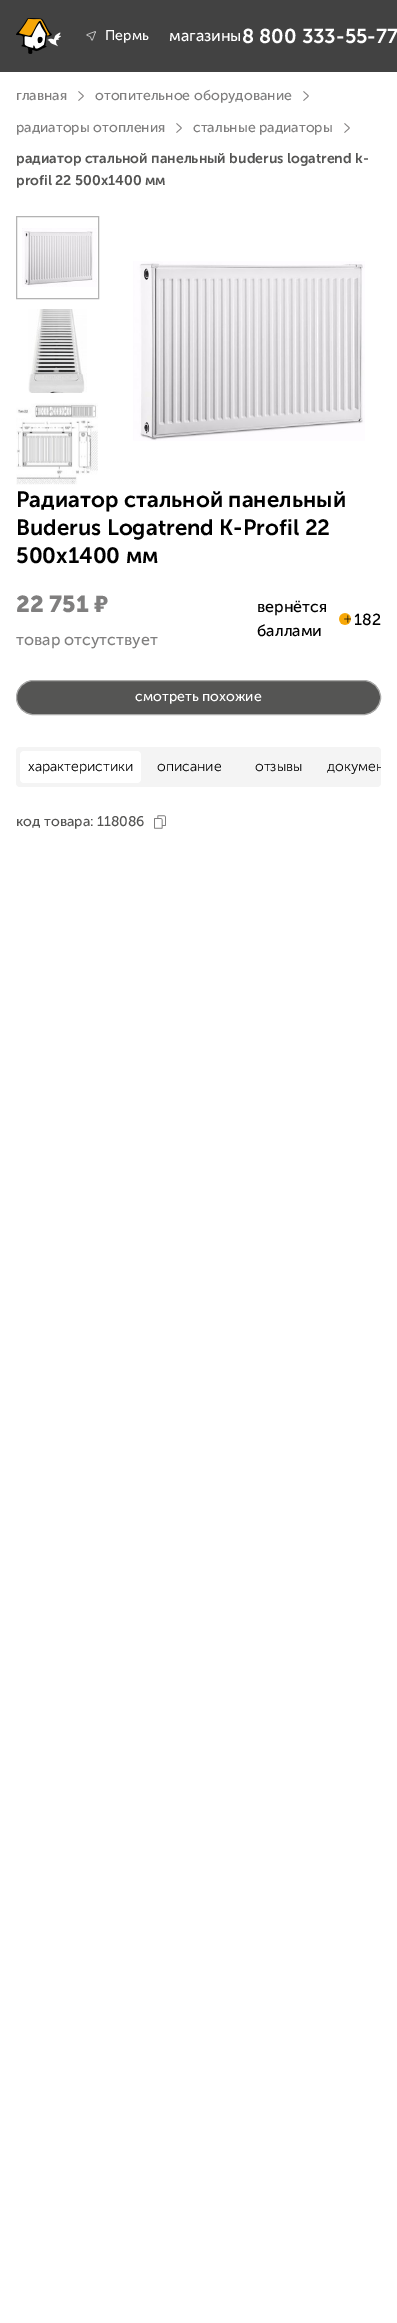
%!PS-Adobe-3.0
%%BoundingBox: 0 0 397 2323
%%LanguageLevel: 3
%%Pages: 1
%%EndComments
%%BeginProlog
/setink { dup -16 bitshift 255 div exch dup -8 bitshift 255 and 255 div exch 255 and 255 div setrgbcolor } def
/usefont { [ exch dup neg 0 0 3 -1 roll 0 0 ] selectfont } def
/rrect { 5 dict begin { /r /h /w /y /x } { exch def } forall
  x r add y moveto x w add y 2 copy h add r arct x w add y h add x 1 index r arct
  x y h add x y r arct x y 2 copy exch w add exch r arct closepath end } def
/drawimage { 5 dict begin { /h /w /y /x /name } { exch def } forall
  gsave x y translate w h scale
  w h 8 [w 0 0 h 0 0] name (r) file false 3 colorimage grestore end } def
%%EndProlog
%%BeginSetup
<< /PageSize [397 2323] >> setpagedevice
%%EndSetup
%%Page: 1 1
0 2323 translate 1 -1 scale
4 setmiterlimit
16#FFFFFF setink
0 0 397 2323 rectfill
16#424242 setink
0 0 397 72 rectfill
(img1.raw) 16 18 45 36 drawimage
(img2.raw) 86 31 10 10 drawimage
/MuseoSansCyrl-Regular 14 usefont
16#FFFFFF setink
105 40 moveto (Пермь) show
/MuseoSansCyrl-Regular 16 usefont
169 41 moveto (магазины) show
/MuseoSansCyrl-SemiBold 20 usefont
242 43 moveto (8 800 333-55-77) show
/MuseoSansCyrl-Regular 14 usefont
16#807F7F setink
16 100 moveto (главная) show
(img3.raw) 78 91 6 10 drawimage
95 100 moveto (отопительное оборудование) show
(img3.raw) 303 91 6 10 drawimage
16 132 moveto (радиаторы отопления) show
(img3.raw) 176 123 6 10 drawimage
193 132 moveto (стальные радиаторы) show
(img3.raw) 344 123 6 10 drawimage
/MuseoSansCyrl-SemiBold 14 usefont
16#555554 setink
16 163 moveto (радиатор стальной панельный buderus logatrend k-) show
16 185 moveto (profil 22 500x1400 мм) show
16#B3B3B3 setink
16.5 216.5 82 82 rectstroke
(img4.raw) 22 228 75 59 drawimage
(img5.raw) 28 309 59 84 drawimage
(img6.raw) 16 403 82 82 drawimage
(img7.raw) 133 261 232 180 drawimage
/MuseoSansCyrl-SemiBold 22 usefont
16#000000 setink
[
    [(Радиатор стальной панельный) 16 507]
    [(Buderus Logatrend K-Profil 22) 16 535]
    [(500x1400 мм) 16 563]
] { aload pop moveto show } forall
/MuseoSansCyrl-Bold 23 usefont
16#807F7F setink
16 612 moveto (22 751) show
/NunitoSans-Black 23 usefont
94 612 moveto (₽) show
/MuseoSansCyrl-Regular 16 usefont
16 645 moveto (товар отсутствует) show
16#000000 setink
257 612 moveto (вернётся) show
257 636 moveto (баллами) show
(img8.raw) 339 613 12 12 drawimage
354 625 moveto (182) show
16#555554 setink
16.5 680.5 364 34 17 rrect gsave fill grestore
16#AAAAA9 setink
stroke
/MuseoSansCyrl-Regular 14 usefont
16#FFFFFF setink
135 701 moveto (смотреть похожие) show
16#F4F4F4 setink
16 747 365 40 4 rrect fill
16#FFFFFF setink
20 751 121 32 4 rrect fill
/MuseoSansCyrl-Light 14 usefont
16#000000 setink
[
    [(характеристики) 28 771]
    [(описание) 157 771]
    [(отзывы) 255 771]
] { aload pop moveto show } forall
gsave
16 216 365 677 rectclip
327 771 moveto (докумен) show
grestore
/MuseoSansCyrl-Regular 14 usefont
16#555554 setink
16 826 moveto (код товара:) show
97 826 moveto (118086) show
(img9.raw) 154 815 12 14 drawimage
showpage
%%EOF
